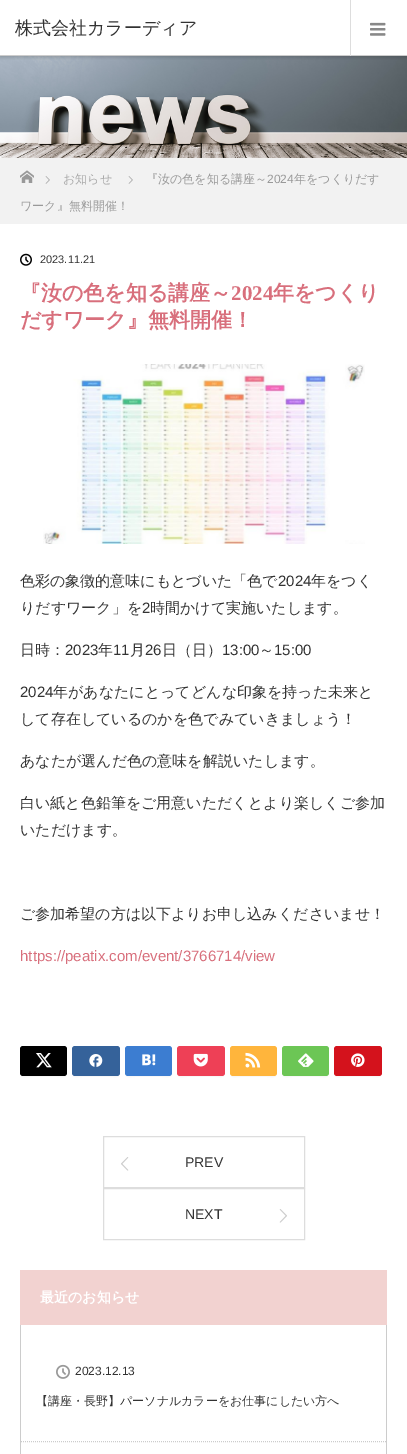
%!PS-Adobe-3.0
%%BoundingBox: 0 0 407 1454
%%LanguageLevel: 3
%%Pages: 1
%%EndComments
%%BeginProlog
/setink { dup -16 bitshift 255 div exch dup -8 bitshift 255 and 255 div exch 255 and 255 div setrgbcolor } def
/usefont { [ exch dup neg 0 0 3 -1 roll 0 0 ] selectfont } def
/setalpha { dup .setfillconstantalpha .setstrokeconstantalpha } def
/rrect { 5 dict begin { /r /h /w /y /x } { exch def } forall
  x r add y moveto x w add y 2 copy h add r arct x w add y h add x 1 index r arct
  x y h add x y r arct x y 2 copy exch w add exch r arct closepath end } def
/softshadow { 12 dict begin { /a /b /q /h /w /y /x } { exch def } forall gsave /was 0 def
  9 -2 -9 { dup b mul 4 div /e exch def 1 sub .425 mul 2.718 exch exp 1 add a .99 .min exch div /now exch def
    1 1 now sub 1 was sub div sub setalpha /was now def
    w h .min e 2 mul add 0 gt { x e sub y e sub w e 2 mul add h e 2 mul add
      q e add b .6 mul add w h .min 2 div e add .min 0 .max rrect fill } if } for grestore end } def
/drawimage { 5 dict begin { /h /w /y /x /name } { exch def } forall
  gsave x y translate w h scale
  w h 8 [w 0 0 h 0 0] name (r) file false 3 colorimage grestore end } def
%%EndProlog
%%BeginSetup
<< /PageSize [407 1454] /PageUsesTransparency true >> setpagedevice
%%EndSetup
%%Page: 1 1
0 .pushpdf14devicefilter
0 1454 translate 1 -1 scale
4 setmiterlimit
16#FFFFFF setink
0 0 407 1454 rectfill
(img2.raw) 0 56 407 102 drawimage
gsave
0 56 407 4 rectclip
16#000000 setink
0 1 407 56 0 2 0.2 softshadow
grestore
16#CCCCCC setink
0 55 407 1 rectfill
/WenQuanYiZenHei-Medium 18 usefont
16#333333 setink
15 34 moveto (株式会社カラーディア) show
16#DDDDDD setink
350 0 1 56 rectfill
(img1.raw) 370 22 16 14 drawimage
16#F2F2F2 setink
0 158 407 66 rectfill
(img3.raw) 20 170 14 13 drawimage
(img4.raw) 128 176 5 8 drawimage
/WenQuanYiZenHei-Medium 12 usefont
16#999999 setink
146 183 moveto (『汝の色を知る講座～) show
/LiberationSans-Regular 12 usefont
267 183 moveto (2024) show
/WenQuanYiZenHei-Medium 12 usefont
294 183 moveto (年をつくりだす) show
20 210 moveto (ワーク』無料開催！) show
(img4.raw) 45 176 5 8 drawimage
16#AAAAAA setink
63 183 moveto (お知らせ) show
(img5.raw) 20 253 12 13 drawimage
/LiberationSans-Regular 11 usefont
16#333333 setink
40 263 moveto (2023.11.21) show
/WenQuanYiZenHei-Bold 21 usefont
16#D86F7C setink
20 300 moveto (『汝の色を知る講座～) show
/LiberationSerif-Bold 21 usefont
231 300 moveto (2024) show
/WenQuanYiZenHei-Bold 21 usefont
273 300 moveto (年をつくり) show
20 327 moveto (だすワーク』無料開催！) show
(img6.raw) 43 364 322 180 drawimage
/WenQuanYiZenHei-Medium 15 usefont
16#333333 setink
20 586 moveto (色彩の象徴的意味にもとづいた「色で) show
/LiberationSans-Regular 15 usefont
278 586 moveto (2024) show
/WenQuanYiZenHei-Medium 15 usefont
311 586 moveto (年をつく) show
20 613 moveto (りだすワーク」を) show
/LiberationSans-Regular 15 usefont
142 613 moveto (2) show
/WenQuanYiZenHei-Medium 15 usefont
150 613 moveto (時間かけて実施いたします。) show
20 655 moveto (日時：) show
/LiberationSans-Regular 15 usefont
65 655 moveto (2023) show
/WenQuanYiZenHei-Medium 15 usefont
98 655 moveto (年) show
/LiberationSans-Regular 15 usefont
113 655 moveto (11) show
/WenQuanYiZenHei-Medium 15 usefont
130 655 moveto (月) show
/LiberationSans-Regular 15 usefont
145 655 moveto (26) show
/WenQuanYiZenHei-Medium 15 usefont
162 655 moveto (日（日）) show
/LiberationSans-Regular 15 usefont
222 655 moveto (13:00) show
/WenQuanYiZenHei-Medium 15 usefont
259 655 moveto (～) show
/LiberationSans-Regular 15 usefont
274 655 moveto (15:00) show
20 697 moveto (2024) show
/WenQuanYiZenHei-Medium 15 usefont
[
    [(年があなたにとってどんな印象を持った未来と) 53 697]
    [(して存在しているのかを色でみていきましょう！) 20 724]
    [(あなたが選んだ色の意味を解説いたします。) 20 766]
    [(白い紙と色鉛筆をご用意いただくとより楽しくご参加) 20 808]
    [(いただけます。) 20 835]
    [(ご参加希望の方は以下よりお申し込みくださいませ！) 20 919]
] { aload pop moveto show } forall
/LiberationSans-Regular 15 usefont
16#D86F7C setink
20 961 moveto (https://peatix.com/event/3766714/view) show
16#F7F7F7 setink
20 1073 moveto 20 1079 26 1077 30 1077 curveto 57 1077 lineto 61 1077 67 1079 67 1073 curveto 67 1075 66 1076 64 1076 curveto 23 1076 lineto 21 1076 20 1075 20 1073 curveto closepath fill
16#000000 setink
20 1046 47 30 3 rrect fill
(img7.raw) 36 1053 16 15 drawimage
16#F7F7F7 setink
72 1073 moveto 72 1079 78 1077 82 1077 curveto 110 1077 lineto 114 1077 120 1079 120 1073 curveto 120 1075 119 1076 117 1076 curveto 75 1076 lineto 73 1076 72 1075 72 1073 curveto closepath fill
16#35629A setink
72 1046 48 30 3 rrect fill
(img8.raw) 89 1054 14 13 drawimage
16#F7F7F7 setink
125 1073 moveto 125 1079 131 1077 135 1077 curveto 162 1077 lineto 166 1077 172 1079 172 1073 curveto 172 1075 171 1076 169 1076 curveto 128 1076 lineto 126 1076 125 1075 125 1073 curveto closepath fill
16#3C7DD1 setink
125 1046 47 30 3 rrect fill
(img9.raw) 142 1054 14 12 drawimage
16#F7F7F7 setink
177 1073 moveto 177 1079 183 1077 187 1077 curveto 215 1077 lineto 219 1077 225 1079 225 1073 curveto 225 1075 224 1076 222 1076 curveto 180 1076 lineto 178 1076 177 1075 177 1073 curveto closepath fill
16#EE4056 setink
177 1046 48 30 3 rrect fill
(img10.raw) 193 1053 15 14 drawimage
16#F7F7F7 setink
230 1073 moveto 230 1079 236 1077 240 1077 curveto 267 1077 lineto 271 1077 277 1079 277 1073 curveto 277 1075 276 1076 274 1076 curveto 233 1076 lineto 231 1076 230 1075 230 1073 curveto closepath fill
16#FFB53C setink
230 1046 47 30 3 rrect fill
(img11.raw) 245 1052 16 16 drawimage
16#F7F7F7 setink
282 1073 moveto 282 1079 288 1077 292 1077 curveto 319 1077 lineto 323 1077 329 1079 329 1073 curveto 329 1075 328 1076 326 1076 curveto 285 1076 lineto 283 1076 282 1075 282 1073 curveto closepath fill
16#6CC655 setink
282 1046 47 30 3 rrect fill
(img12.raw) 298 1053 16 14 drawimage
16#F7F7F7 setink
334 1073 moveto 334 1079 340 1077 344 1077 curveto 372 1077 lineto 376 1077 382 1079 382 1073 curveto 382 1075 381 1076 379 1076 curveto 337 1076 lineto 335 1076 334 1075 334 1073 curveto closepath fill
16#D4121C setink
334 1046 48 30 3 rrect fill
(img13.raw) 351 1053 14 14 drawimage
16#DDDDDD setink
103.5 1136.5 201 51 rectstroke
(img14.raw) 121 1157 8 14 drawimage
/LiberationSans-Regular 14 usefont
16#333333 setink
185 1167 moveto (PREV) show
16#DDDDDD setink
103.5 1188.5 201 51 rectstroke
16#333333 setink
185 1219 moveto (NEXT) show
(img15.raw) 279 1209 8 14 drawimage
16#F2D2D0 setink
20 1270 367 55 rectfill
/WenQuanYiZenHei-Bold 14 usefont
16#FFFFFF setink
40 1302 moveto (最近のお知らせ) show
16#CCCCCC setink
386 1325 1 129 rectfill
20 1325 1 129 rectfill
[1 1] 0 setdash
21 1441.5 moveto 386 1441.5 lineto stroke
(img16.raw) 56 1364 14 15 drawimage
/LiberationSans-Regular 12 usefont
16#333333 setink
75 1375 moveto (2023.12.13) show
/WenQuanYiZenHei-Medium 12 usefont
36 1405 moveto (【講座・長野】パーソナルカラーをお仕事にしたい方へ) show
.poppdf14devicefilter showpage
%%EOF
